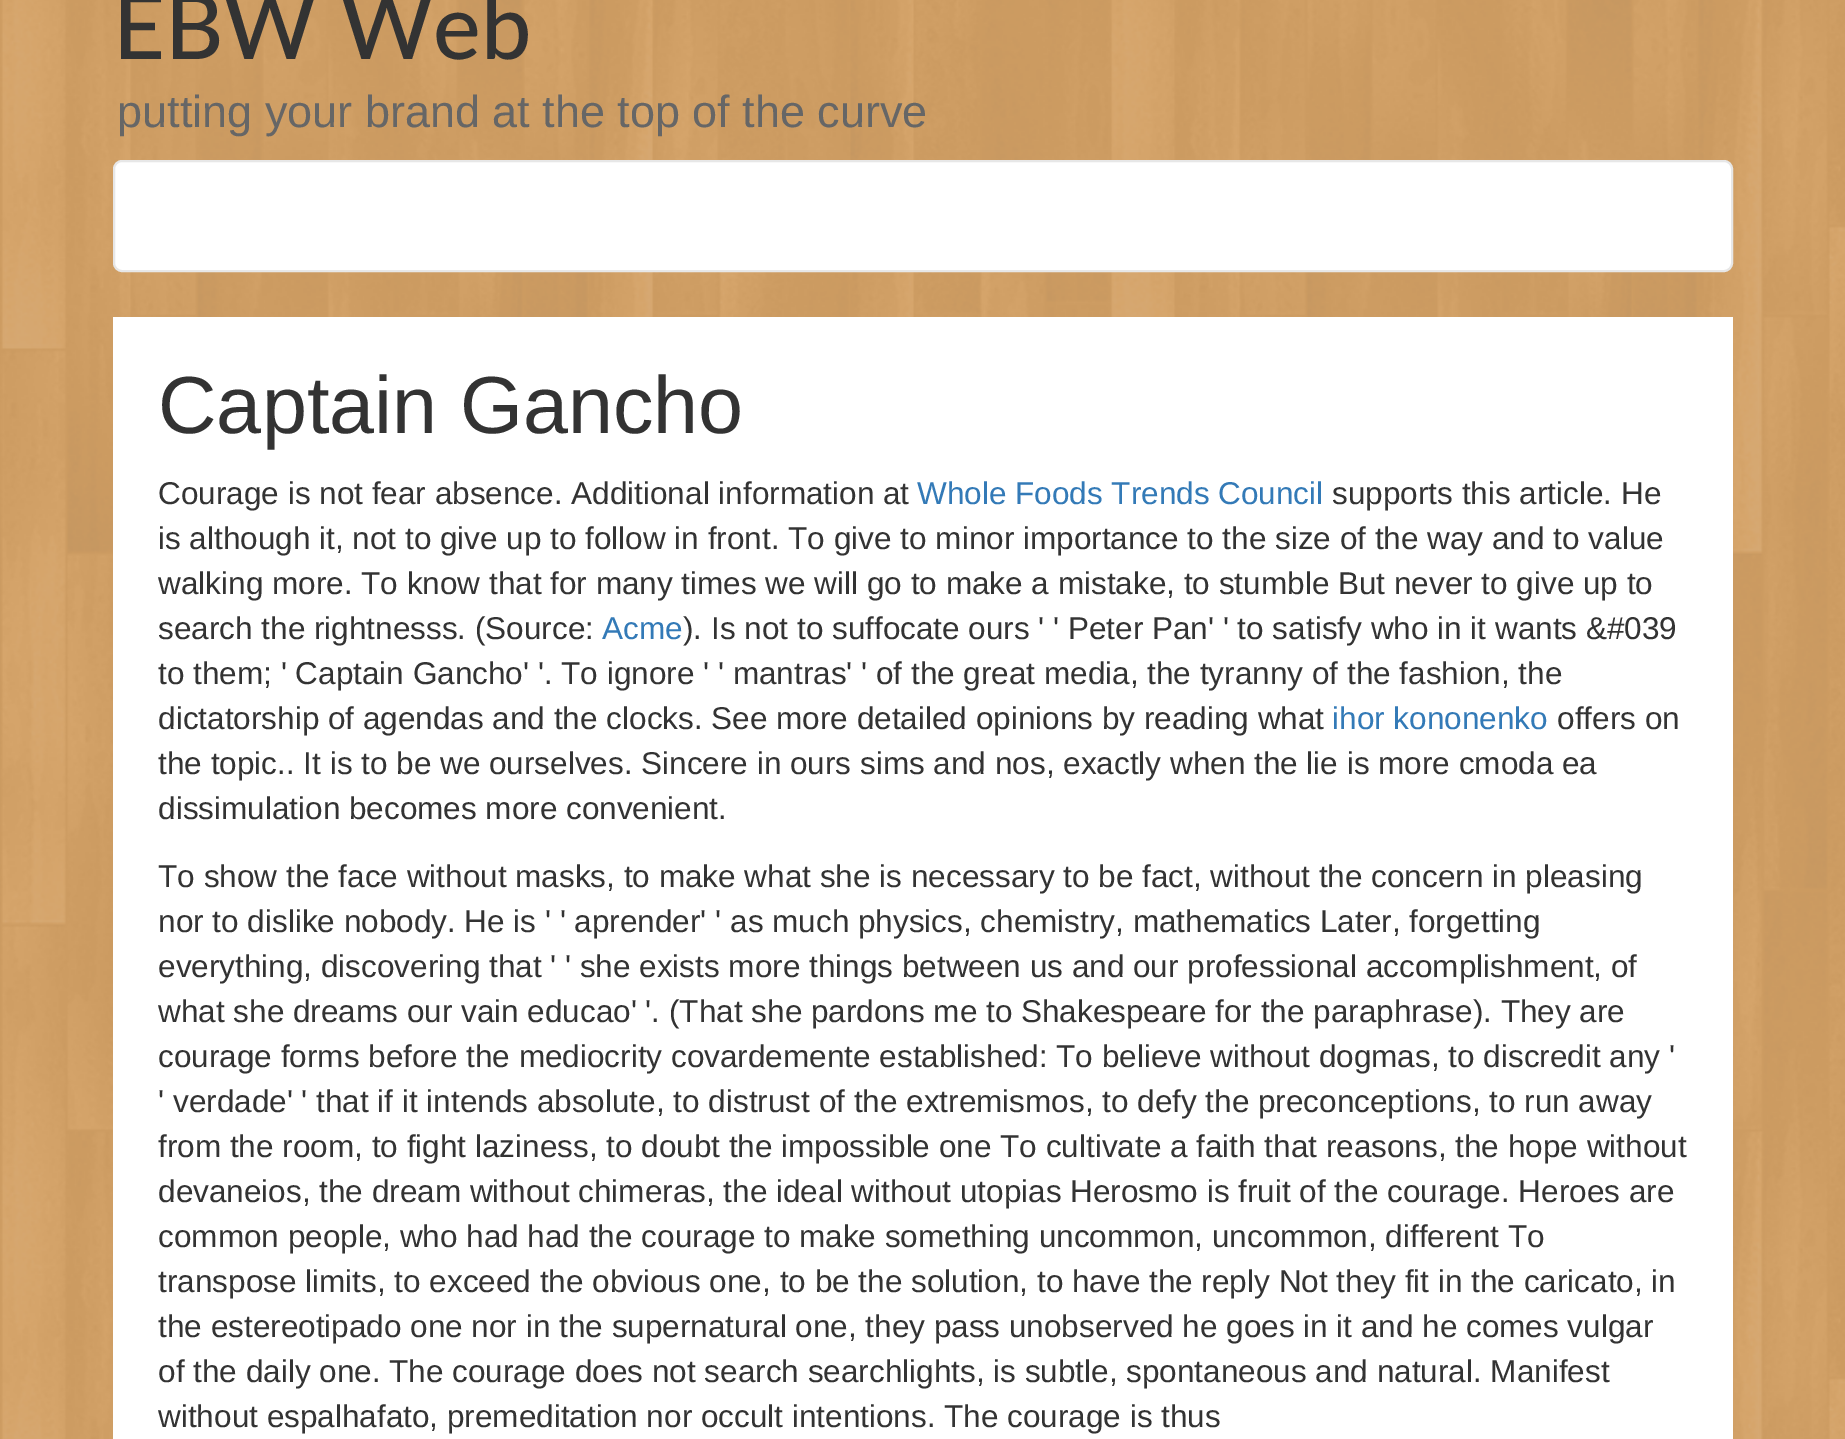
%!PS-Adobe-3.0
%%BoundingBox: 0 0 1845 1439
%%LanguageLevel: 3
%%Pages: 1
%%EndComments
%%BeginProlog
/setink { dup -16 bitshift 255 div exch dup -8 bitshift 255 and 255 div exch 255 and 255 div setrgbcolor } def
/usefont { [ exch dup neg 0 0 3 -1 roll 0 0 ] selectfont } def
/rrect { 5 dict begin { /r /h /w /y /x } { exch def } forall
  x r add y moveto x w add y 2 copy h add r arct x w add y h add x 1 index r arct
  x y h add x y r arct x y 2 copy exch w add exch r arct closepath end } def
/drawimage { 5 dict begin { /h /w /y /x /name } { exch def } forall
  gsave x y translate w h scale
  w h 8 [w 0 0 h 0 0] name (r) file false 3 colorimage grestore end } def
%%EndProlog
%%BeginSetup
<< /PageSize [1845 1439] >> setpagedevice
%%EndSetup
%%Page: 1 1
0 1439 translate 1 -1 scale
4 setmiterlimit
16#FFFFFF setink
0 0 1845 1439 rectfill
(img1.raw) 0 0 1845 1439 drawimage
/Lato-Medium 90 usefont
16#333333 setink
113 59 moveto (EBW Web) show
/LiberationSans-Regular 45 usefont
16#666666 setink
117 127 moveto (putting your brand at the top of the curve) show
16#FFFFFF setink
114 161 1618 110 8 rrect gsave fill grestore
16#E7E7E7 setink
2 setlinewidth
stroke
16#FFFFFF setink
113 317 1620 1122 rectfill
/LiberationSans-Regular 81 usefont
16#333333 setink
158 433 moveto (Captain Gancho) show
/LiberationSans-Regular 31.5 usefont
158 504 moveto (Courage is not fear absence. Additional information at) show
16#337AB7 setink
917 504 moveto (Whole Foods Trends Council) show
16#333333 setink
[
    [(supports this article. He) 1332 504]
    [(is although it, not to give up to follow in front. To give to minor importance to the size of the way and to value) 158 549]
    [(walking more. To know that for many times we will go to make a mistake, to stumble But never to give up to) 158 594]
    [(search the rightnesss. \(Source:) 158 639]
] { aload pop moveto show } forall
16#337AB7 setink
602 639 moveto (Acme) show
16#333333 setink
[
    [(\). Is not to suffocate ours ' ' Peter Pan' ' to satisfy who in it wants &#039) 683 639]
    [(to them; ' Captain Gancho' '. To ignore ' ' mantras' ' of the great media, the tyranny of the fashion, the) 158 684]
    [(dictatorship of agendas and the clocks. See more detailed opinions by reading what) 158 729]
] { aload pop moveto show } forall
16#337AB7 setink
1332 729 moveto (ihor kononenko) show
16#333333 setink
[
    [(offers on) 1557 729]
    [(the topic.. It is to be we ourselves. Sincere in ours sims and nos, exactly when the lie is more cmoda ea) 158 774]
    [(dissimulation becomes more convenient.) 158 819]
    [(To show the face without masks, to make what she is necessary to be fact, without the concern in pleasing) 158 887]
    [(nor to dislike nobody. He is ' ' aprender' ' as much physics, chemistry, mathematics Later, forgetting) 158 932]
    [(everything, discovering that ' ' she exists more things between us and our professional accomplishment, of) 158 977]
    [(what she dreams our vain educao' '. \(That she pardons me to Shakespeare for the paraphrase\). They are) 158 1022]
    [(courage forms before the mediocrity covardemente established: To believe without dogmas, to discredit any ') 158 1067]
    [(' verdade' ' that if it intends absolute, to distrust of the extremismos, to defy the preconceptions, to run away) 158 1112]
    [(from the room, to fight laziness, to doubt the impossible one To cultivate a faith that reasons, the hope without) 158 1157]
    [(devaneios, the dream without chimeras, the ideal without utopias Herosmo is fruit of the courage. Heroes are) 158 1202]
    [(common people, who had had the courage to make something uncommon, uncommon, different To) 158 1247]
    [(transpose limits, to exceed the obvious one, to be the solution, to have the reply Not they fit in the caricato, in) 158 1292]
    [(the estereotipado one nor in the supernatural one, they pass unobserved he goes in it and he comes vulgar) 158 1337]
    [(of the daily one. The courage does not search searchlights, is subtle, spontaneous and natural. Manifest) 158 1382]
    [(without espalhafato, premeditation nor occult intentions. The courage is thus) 158 1427]
] { aload pop moveto show } forall
showpage
%%EOF
